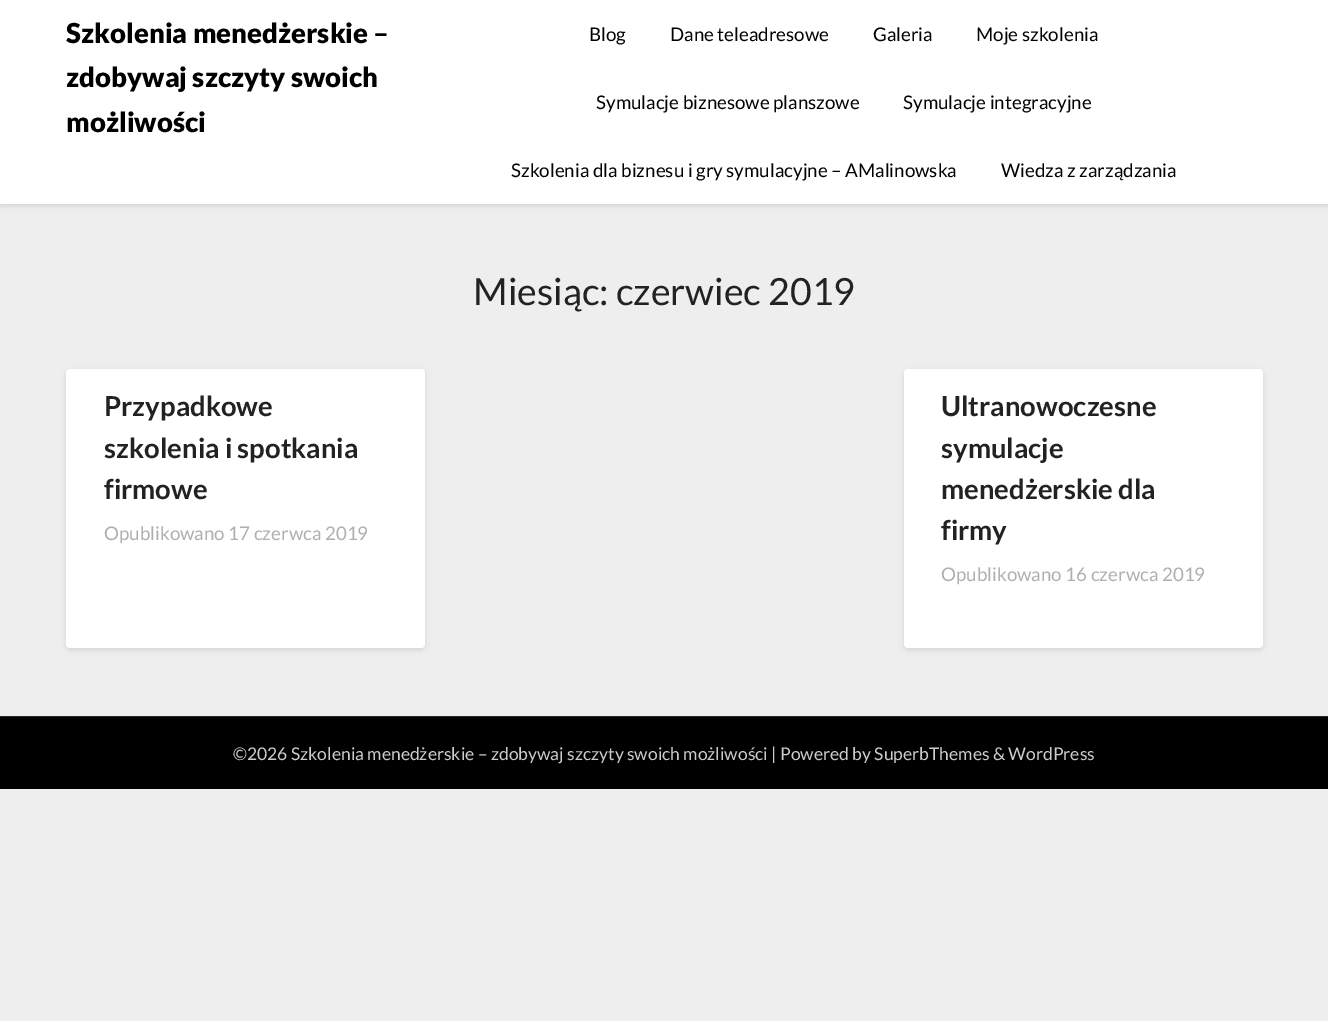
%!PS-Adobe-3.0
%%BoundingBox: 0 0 1328 1021
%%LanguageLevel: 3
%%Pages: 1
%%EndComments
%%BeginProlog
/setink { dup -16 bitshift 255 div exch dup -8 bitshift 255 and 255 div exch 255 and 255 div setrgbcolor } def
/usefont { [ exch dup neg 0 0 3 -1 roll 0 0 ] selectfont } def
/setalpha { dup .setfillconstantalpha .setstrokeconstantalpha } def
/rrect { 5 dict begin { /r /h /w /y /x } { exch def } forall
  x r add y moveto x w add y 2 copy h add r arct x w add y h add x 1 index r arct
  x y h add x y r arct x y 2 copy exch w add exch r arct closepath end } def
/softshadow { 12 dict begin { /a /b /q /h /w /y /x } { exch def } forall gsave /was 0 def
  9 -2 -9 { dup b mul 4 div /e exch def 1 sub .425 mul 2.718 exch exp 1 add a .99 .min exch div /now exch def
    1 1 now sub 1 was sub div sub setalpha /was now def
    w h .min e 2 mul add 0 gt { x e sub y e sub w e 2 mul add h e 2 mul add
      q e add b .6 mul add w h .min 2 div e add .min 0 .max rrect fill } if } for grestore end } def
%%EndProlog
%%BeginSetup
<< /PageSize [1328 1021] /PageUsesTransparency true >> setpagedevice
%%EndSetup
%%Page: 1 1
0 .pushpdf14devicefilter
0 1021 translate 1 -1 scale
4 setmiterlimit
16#EEEEEE setink
0 0 1328 1021 rectfill
16#000000 setink
0 3 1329 203 0 2.5 0.1 softshadow
16#FFFFFF setink
0 0 1328 204 rectfill
/Lato-Black 27.5 usefont
16#000000 setink
[
    [(Szkolenia menedżerskie –) 66 43]
    [(zdobywaj szczyty swoich) 66 87]
    [(możliwości) 66 132]
] { aload pop moveto show } forall
/Lato-Regular 18.75 usefont
[
    [(Blog) 589 41]
    [(Dane teleadresowe) 670 41]
    [(Galeria) 873 41]
    [(Moje szkolenia) 976 41]
    [(Symulacje biznesowe planszowe) 596 109]
    [(Symulacje integracyjne) 903 109]
    [(Szkolenia dla biznesu i gry symulacyjne – AMalinowska) 511 177]
    [(Wiedza z zarządzania) 1001 177]
] { aload pop moveto show } forall
/Lato-Regular 37.5 usefont
16#222222 setink
473 305 moveto (Miesiąc: czerwiec 2019) show
16#000000 setink
66 371 359 279 4 2.5 0.1 softshadow
16#FFFFFF setink
66 369 359 279 4 rrect fill
/Lato-Bold 27.5 usefont
16#222222 setink
[
    [(Przypadkowe) 104 416]
    [(szkolenia i spotkania) 104 458]
    [(firmowe) 104 499]
] { aload pop moveto show } forall
/Lato-Regular 18.75 usefont
16#AFAFAF setink
104 540 moveto (Opublikowano 17 czerwca 2019) show
16#000000 setink
904 371 359 279 4 2.5 0.1 softshadow
16#FFFFFF setink
904 369 359 279 4 rrect fill
/Lato-Bold 27.5 usefont
16#222222 setink
[
    [(Ultranowoczesne) 941 416]
    [(symulacje) 941 458]
    [(menedżerskie dla) 941 499]
    [(firmy) 941 540]
] { aload pop moveto show } forall
/Lato-Regular 18.75 usefont
16#AFAFAF setink
941 581 moveto (Opublikowano 16 czerwca 2019) show
16#000000 setink
0 717 1328 72 rectfill
16#292929 setink
0 716 1328 1 rectfill
/Lato-Regular 17.5 usefont
16#CCCCCC setink
233 760 moveto (©2026 Szkolenia menedżerskie – zdobywaj szczyty swoich możliwości | Powered by SuperbThemes & WordPress) show
.poppdf14devicefilter showpage
%%EOF
